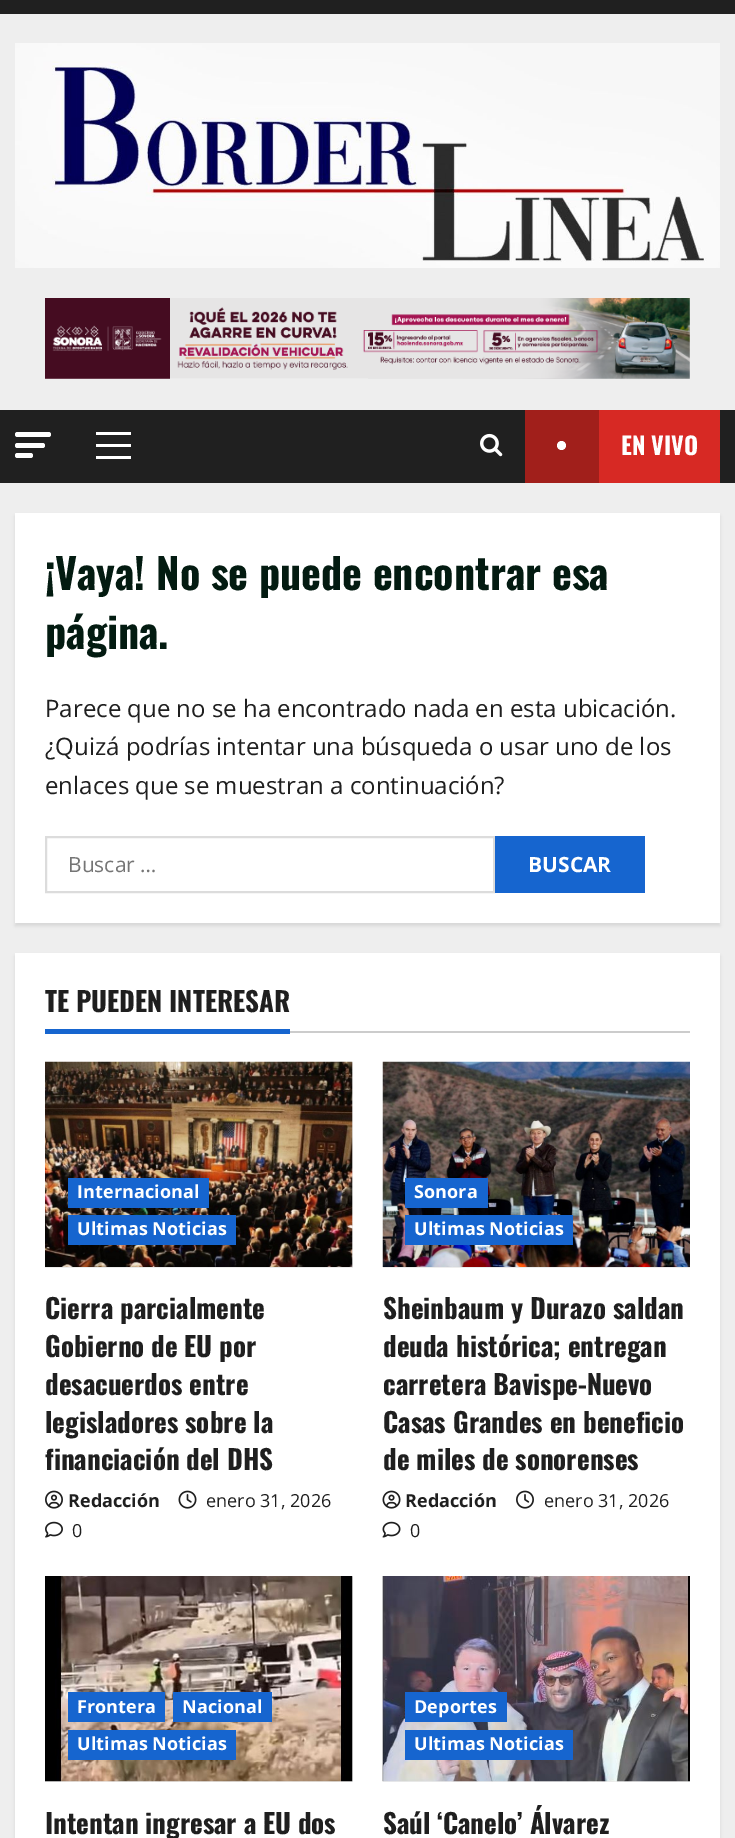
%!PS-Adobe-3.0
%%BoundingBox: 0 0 735 1838
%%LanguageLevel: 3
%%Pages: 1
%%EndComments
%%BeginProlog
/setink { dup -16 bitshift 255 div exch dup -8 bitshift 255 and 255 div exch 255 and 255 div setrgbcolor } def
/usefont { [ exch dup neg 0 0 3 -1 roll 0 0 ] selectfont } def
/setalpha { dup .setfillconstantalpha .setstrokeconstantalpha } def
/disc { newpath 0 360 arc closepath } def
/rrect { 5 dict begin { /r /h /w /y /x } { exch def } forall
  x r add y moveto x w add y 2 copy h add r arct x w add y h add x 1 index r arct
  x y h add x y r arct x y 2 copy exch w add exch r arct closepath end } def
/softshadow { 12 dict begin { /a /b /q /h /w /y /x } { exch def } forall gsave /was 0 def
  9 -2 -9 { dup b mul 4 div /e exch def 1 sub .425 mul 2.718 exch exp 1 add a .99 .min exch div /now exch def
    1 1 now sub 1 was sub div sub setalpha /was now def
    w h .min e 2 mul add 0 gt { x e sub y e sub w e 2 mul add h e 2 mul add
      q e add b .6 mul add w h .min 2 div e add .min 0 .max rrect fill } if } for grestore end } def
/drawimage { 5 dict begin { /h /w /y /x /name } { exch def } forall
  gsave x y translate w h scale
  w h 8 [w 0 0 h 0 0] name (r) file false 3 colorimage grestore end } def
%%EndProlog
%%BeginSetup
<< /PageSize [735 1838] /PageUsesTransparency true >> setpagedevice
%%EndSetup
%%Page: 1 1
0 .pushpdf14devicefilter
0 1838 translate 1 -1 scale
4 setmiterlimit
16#EEEEEE setink
0 0 735 1838 rectfill
16#202020 setink
0 0 735 14 rectfill
(img1.raw) 15 43 705 225 drawimage
(img2.raw) 45 298 645 81 drawimage
0 410 735 73 rectfill
16#FFFFFF setink
15 432 36 5 2.5 rrect fill
15 443 30 5 2.5 rrect fill
15 453 18 5 2.5 rrect fill
[
    [96 444 35 3 16#FFFFFF]
    [96 432 35 3 16#FFFFFF]
    [96 456 35 3 16#FFFFFF]
] { aload pop setink rectfill } forall
(img3.raw) 480 433 23 24 drawimage
16#D72924 setink
599 410 121 73 rectfill
16#A11F1B setink
525 410 74 73 rectfill
16#FFFFFF setink
561.5 445.5 4.5 disc fill
/Oswald-Bold 24 usefont
621 455 moveto (EN VIVO) show
16#000000 setink
15 516 705 410 0 1.5 0.08 softshadow
16#FFFFFF setink
15 513 705 410 rectfill
/Oswald-Bold 42 usefont
16#031B11 setink
45 590 moveto (¡Vaya! No se puede encontrar esa) show
45 649 moveto (página.) show
/OpenSans-Regular 24 usefont
16#1F1F1F setink
[
    [(Parece que no se ha encontrado nada en esta ubicación.) 45 717]
    [(¿Quizá podrías intentar una búsqueda o usar uno de los) 45 755]
    [(enlaces que se muestran a continuación?) 45 794]
] { aload pop moveto show } forall
16#DCDCDC setink
2 setlinewidth
46 837 448 55 rectstroke
/OpenSans-Regular 21 usefont
16#757575 setink
68 872 moveto (Buscar …) show
16#1665CF setink
495 836 150 57 rectfill
/OpenSans-Bold 21 usefont
16#FFFFFF setink
528 872 moveto (BUSCAR) show
16#000000 setink
15 956 705 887 0 1.5 0.08 softshadow
16#FFFFFF setink
15 953 705 885 rectfill
16#CCCCCC setink
290 1031 400 2 rectfill
/Oswald-Bold 27 usefont
16#1F1F1F setink
45 1012 moveto (TE PUEDEN INTERESAR) show
16#1665CF setink
45 1029 245 5 rectfill
16#ECECEC setink
45 1062 308 206 rectfill
(img4.raw) 45 1061 308 206 drawimage
16#1665CF setink
68 1178 141 30 rectfill
/OpenSans-Bold 18 usefont
16#FFFFFF setink
77 1198 moveto 0.1 0 (Internacional) ashow
16#1665CF setink
68 1215 168 30 rectfill
16#FFFFFF setink
77 1235 moveto 0.1 0 (Ultimas Noticias) ashow
/Oswald-Bold 27 usefont
16#1F1F1F setink
[
    [(Cierra parcialmente) 45 1319]
    [(Gobierno de EU por) 45 1357]
    [(desacuerdos entre) 45 1395]
    [(legisladores sobre la) 45 1433]
    [(financiación del DHS) 45 1470]
] { aload pop moveto show } forall
(img5.raw) 45 1490 18 19 drawimage
/OpenSans-Bold 18 usefont
68 1507 moveto (Redacción) show
(img6.raw) 178 1490 19 19 drawimage
/OpenSans-Regular 18 usefont
206 1507 moveto (enero 31, 2026) show
(img7.raw) 45 1521 18 17 drawimage
72 1537 moveto (0) show
16#ECECEC setink
383 1267 307 1 rectfill
(img8.raw) 382 1061 308 206 drawimage
16#1665CF setink
405 1178 83 30 rectfill
/OpenSans-Bold 18 usefont
16#FFFFFF setink
414 1198 moveto 0.1 0 (Sonora) ashow
16#1665CF setink
405 1215 168 30 rectfill
16#FFFFFF setink
414 1235 moveto 0.1 0 (Ultimas Noticias) ashow
/Oswald-Bold 27 usefont
16#1F1F1F setink
[
    [(Sheinbaum y Durazo saldan) 383 1319]
    [(deuda histórica; entregan) 383 1357]
    [(carretera Bavispe-Nuevo) 383 1395]
    [(Casas Grandes en beneficio) 383 1433]
    [(de miles de sonorenses) 383 1470]
] { aload pop moveto show } forall
(img9.raw) 382 1490 19 19 drawimage
/OpenSans-Bold 18 usefont
405 1507 moveto (Redacción) show
(img10.raw) 516 1490 18 19 drawimage
/OpenSans-Regular 18 usefont
544 1507 moveto (enero 31, 2026) show
(img11.raw) 382 1521 19 17 drawimage
410 1537 moveto (0) show
16#ECECEC setink
45 1577 308 205 rectfill
(img12.raw) 45 1576 308 206 drawimage
16#1665CF setink
68 1692 97 30 rectfill
/OpenSans-Bold 18 usefont
16#FFFFFF setink
77 1713 moveto 0.1 0 (Frontera) ashow
16#1665CF setink
173 1692 99 30 rectfill
16#FFFFFF setink
182 1713 moveto 0.1 0 (Nacional) ashow
16#1665CF setink
68 1730 168 30 rectfill
16#FFFFFF setink
77 1750 moveto 0.1 0 (Ultimas Noticias) ashow
/Oswald-Bold 27 usefont
16#1F1F1F setink
45 1834 moveto (Intentan ingresar a EU dos) show
16#ECECEC setink
383 1781 307 1 rectfill
(img13.raw) 382 1576 308 206 drawimage
16#1665CF setink
405 1692 102 30 rectfill
/OpenSans-Bold 18 usefont
16#FFFFFF setink
414 1713 moveto 0.1 0 (Deportes) ashow
16#1665CF setink
405 1730 168 30 rectfill
16#FFFFFF setink
414 1750 moveto 0.1 0 (Ultimas Noticias) ashow
/Oswald-Bold 27 usefont
16#1F1F1F setink
383 1834 moveto (Saúl ‘Canelo’ Álvarez) show
.poppdf14devicefilter showpage
%%EOF
